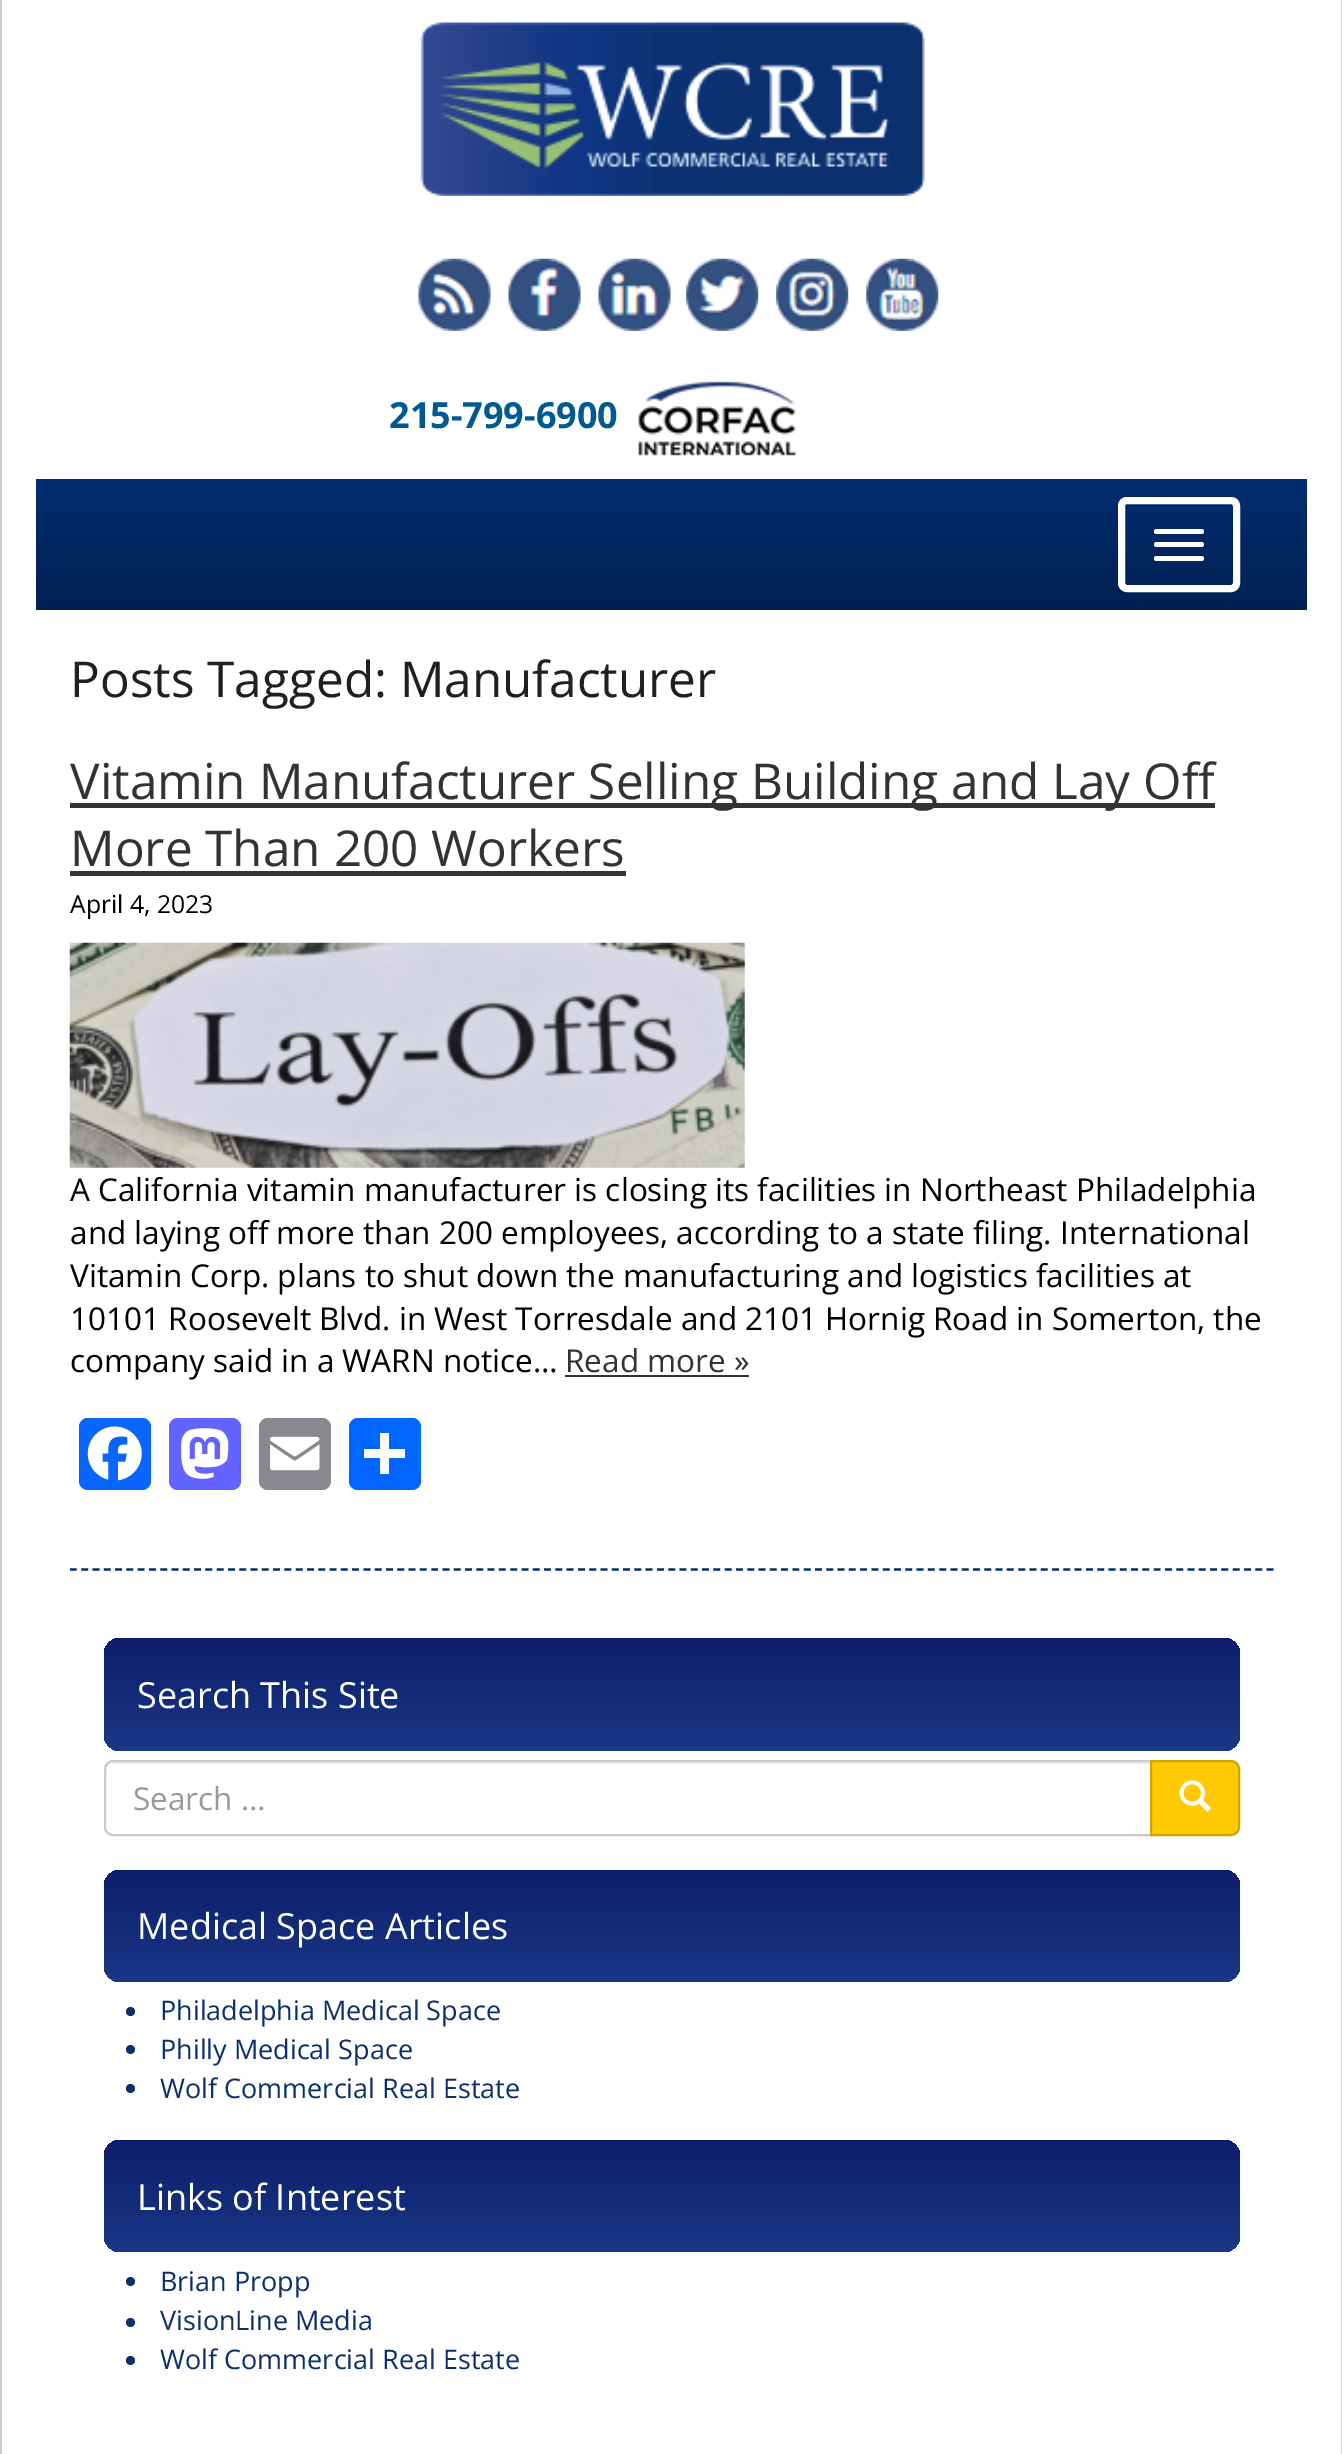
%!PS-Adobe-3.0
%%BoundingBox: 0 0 1342 2454
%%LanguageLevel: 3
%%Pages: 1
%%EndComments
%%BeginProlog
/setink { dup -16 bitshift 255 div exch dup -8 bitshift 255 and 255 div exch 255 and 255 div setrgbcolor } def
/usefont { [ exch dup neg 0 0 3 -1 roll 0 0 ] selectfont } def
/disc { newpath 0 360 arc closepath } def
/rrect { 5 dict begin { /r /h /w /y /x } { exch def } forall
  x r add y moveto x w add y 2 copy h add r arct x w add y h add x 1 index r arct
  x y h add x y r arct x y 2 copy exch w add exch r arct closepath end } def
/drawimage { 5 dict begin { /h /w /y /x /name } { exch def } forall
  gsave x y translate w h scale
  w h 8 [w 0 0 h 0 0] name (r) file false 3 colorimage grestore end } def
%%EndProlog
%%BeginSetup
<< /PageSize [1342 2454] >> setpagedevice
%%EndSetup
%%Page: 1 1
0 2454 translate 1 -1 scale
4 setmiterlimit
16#FFFFFF setink
0 0 1342 2454 rectfill
16#CCCCCC setink
1341 0 1 2454 rectfill
0 0 2 2454 rectfill
(img1.raw) 420 22 505 174 drawimage
(img2.raw) 418 258 73 73 drawimage
(img3.raw) 508 258 73 73 drawimage
(img4.raw) 598 258 73 73 drawimage
(img5.raw) 686 258 73 73 drawimage
(img6.raw) 776 258 73 73 drawimage
(img7.raw) 866 258 73 73 drawimage
/OpenSans-Bold 36 usefont
16#005991 setink
389 428 moveto (215-799-6900) show
(img8.raw) 638 381 158 75 drawimage
gsave 36 479 moveto 1307 479 lineto 1307 610 lineto 36 610 lineto closepath clip newpath
<< /ShadingType 2 /ColorSpace /DeviceRGB /Coords [672 479 672 610] /Extend [true true] /Function << /FunctionType 2 /Domain [0 1] /C0 [0.008 0.176 0.439] /C1 [0.004 0.129 0.325] /N 1 >> >> shfill grestore
16#FFFFFF setink
7 setlinewidth
1121.5 500.5 115 88 5.5 rrect stroke
1154 529 50 5 2.5 rrect fill
1154 542 50 5 2.5 rrect fill
1154 556 50 5 2.5 rrect fill
/OpenSans-Regular 49.5 usefont
16#231F20 setink
70 697 moveto (Posts Tagged: Manufacturer) show
16#022D70 setink
2.2 setlinewidth
[6.75 4.54] 0 setdash
70 1569.5 moveto 1273.5 1569.5 lineto stroke
16#333333 setink
70 803 1145 5 rectfill
70 799 moveto (Vitamin Manufacturer Selling Building and Lay Off) show
70 866 moveto (More Than 200 Workers) show
70 871 556 5 rectfill
/OpenSans-Regular 24.75 usefont
16#000000 setink
70 913 moveto (April 4, 2023) show
(img9.raw) 69 942 676 226 drawimage
/OpenSans-Regular 31.5 usefont
[
    [(A California vitamin manufacturer is closing its facilities in Northeast Philadelphia) 70 1201]
    [(and laying off more than 200 employees, according to a state filing. International) 70 1244]
    [(Vitamin Corp. plans to shut down the manufacturing and logistics facilities at) 70 1287]
    [(10101 Roosevelt Blvd. in West Torresdale and 2101 Hornig Road in Somerton, the) 70 1330]
    [(company said in a WARN notice…) 70 1372]
] { aload pop moveto show } forall
16#333333 setink
565 1372 moveto (Read more ») show
565 1375 184 2 rectfill
16#0866FF setink
79 1418 72 72 9 rrect fill
(img10.raw) 87 1426 55 55 drawimage
16#6364FF setink
169 1418 72 72 9 rrect fill
(img11.raw) 181 1428 48 51 drawimage
16#888990 setink
259 1418 72 72 9 rrect fill
(img12.raw) 270 1436 50 35 drawimage
16#0166FF setink
349 1418 72 72 9 rrect fill
16#FFFFFF setink
380 1433 9 41 rectfill
364 1449 41 9 rectfill
gsave 104 1638 1136 113 16 rrect clip newpath
<< /ShadingType 2 /ColorSpace /DeviceRGB /Coords [672 1638 672 1751] /Extend [true true] /Function << /FunctionType 2 /Domain [0 1] /C0 [0.051 0.114 0.416] /C1 [0.098 0.22 0.525] /N 1 >> >> shfill grestore
/OpenSans-Regular 36 usefont
137 1708 moveto (Search This Site) show
16#ECECEC setink
112 1764 moveto 1150 1764 lineto 1150 1762 lineto 113 1762 lineto 108 1762 106 1767 106 1771 curveto 106 1767 109 1764 112 1764 curveto closepath fill
16#CCCCCC setink
2 setlinewidth
[] 0 setdash
113 1761 moveto 1151 1761 lineto 1151 1835 lineto 113 1835 lineto 108.5 1835 105 1831.5 105 1827 curveto 105 1769 lineto 105 1764.5 108.5 1761 113 1761 curveto closepath stroke
/OpenSans-Regular 31.5 usefont
16#999999 setink
133 1810 moveto (Search …) show
16#FFCA05 setink
1151 1761 moveto 1231 1761 lineto 1235.5 1761 1239 1764.5 1239 1769 curveto 1239 1827 lineto 1239 1831.5 1235.5 1835 1231 1835 curveto 1151 1835 lineto closepath gsave fill grestore
16#D1A500 setink
stroke
(img13.raw) 1179 1780 32 32 drawimage
gsave 104 1870 1136 112 16 rrect clip newpath
<< /ShadingType 2 /ColorSpace /DeviceRGB /Coords [672 1870 672 1982] /Extend [true true] /Function << /FunctionType 2 /Domain [0 1] /C0 [0.051 0.114 0.416] /C1 [0.098 0.22 0.525] /N 1 >> >> shfill grestore
/OpenSans-Regular 36 usefont
16#FFFFFF setink
137 1939 moveto (Medical Space Articles) show
16#0C2F6E setink
130.5 2011.5 4.5 disc fill
/OpenSans-Regular 27 usefont
160 2020 moveto (Philadelphia Medical Space) show
130.5 2049.5 4.5 disc fill
160 2059 moveto (Philly Medical Space) show
130.5 2088.5 4.5 disc fill
160 2098 moveto (Wolf Commercial Real Estate) show
gsave 104 2140 1136 112 16 rrect clip newpath
<< /ShadingType 2 /ColorSpace /DeviceRGB /Coords [672 2140 672 2252] /Extend [true true] /Function << /FunctionType 2 /Domain [0 1] /C0 [0.051 0.114 0.416] /C1 [0.098 0.22 0.525] /N 1 >> >> shfill grestore
/OpenSans-Regular 36 usefont
16#FFFFFF setink
137 2210 moveto (Links of Interest) show
16#0C2F6E setink
130.5 2281.5 4.5 disc fill
/OpenSans-Regular 27 usefont
160 2291 moveto (Brian Propp) show
130.5 2322.5 4.5 disc fill
160 2330 moveto (VisionLine Media) show
130.5 2360.5 4.5 disc fill
160 2369 moveto (Wolf Commercial Real Estate) show
showpage
%%EOF
